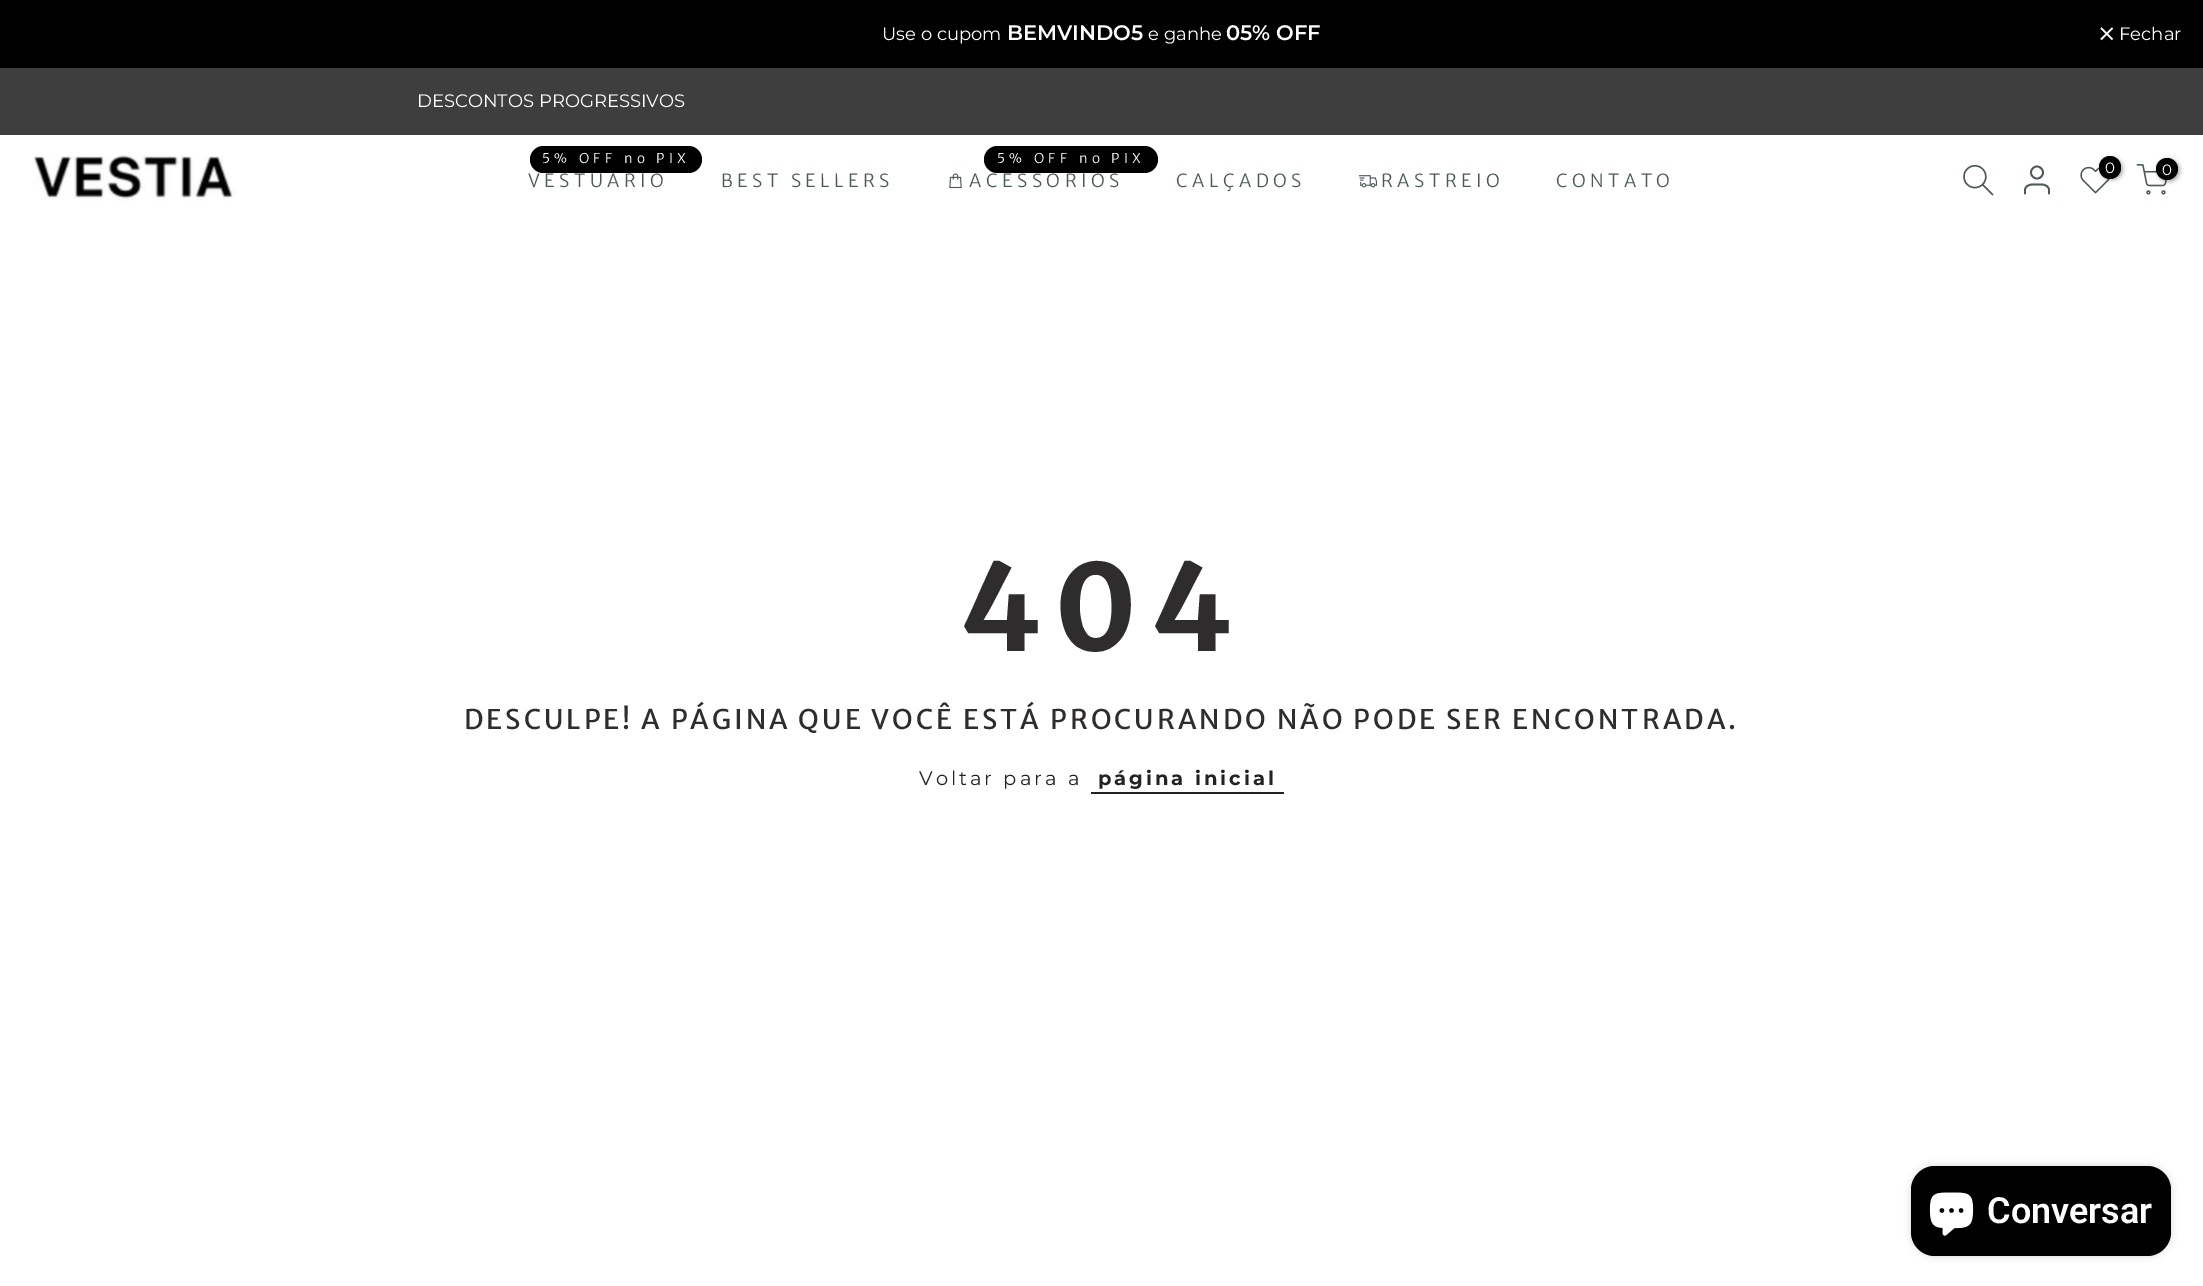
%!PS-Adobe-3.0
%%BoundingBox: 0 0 2203 1286
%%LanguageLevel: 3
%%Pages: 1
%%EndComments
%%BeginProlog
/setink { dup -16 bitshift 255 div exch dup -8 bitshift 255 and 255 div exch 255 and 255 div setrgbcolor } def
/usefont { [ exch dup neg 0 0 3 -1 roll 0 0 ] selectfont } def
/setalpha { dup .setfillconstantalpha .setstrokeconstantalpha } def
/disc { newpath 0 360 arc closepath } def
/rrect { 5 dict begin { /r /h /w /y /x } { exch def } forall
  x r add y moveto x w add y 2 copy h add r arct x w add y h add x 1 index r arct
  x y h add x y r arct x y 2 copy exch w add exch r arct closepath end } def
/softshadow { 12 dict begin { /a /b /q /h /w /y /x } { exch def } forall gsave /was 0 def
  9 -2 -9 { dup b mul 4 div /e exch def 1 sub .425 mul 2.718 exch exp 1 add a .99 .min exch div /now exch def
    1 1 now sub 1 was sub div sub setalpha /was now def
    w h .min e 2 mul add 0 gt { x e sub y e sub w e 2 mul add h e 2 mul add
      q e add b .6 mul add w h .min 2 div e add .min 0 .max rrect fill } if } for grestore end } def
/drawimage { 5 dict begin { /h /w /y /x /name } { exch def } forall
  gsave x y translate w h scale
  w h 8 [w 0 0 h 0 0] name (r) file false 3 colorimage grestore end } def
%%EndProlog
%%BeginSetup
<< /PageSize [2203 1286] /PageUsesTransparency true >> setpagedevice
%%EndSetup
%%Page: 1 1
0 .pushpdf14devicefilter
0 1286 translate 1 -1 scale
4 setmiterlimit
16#FFFFFF setink
0 0 2203 1286 rectfill
16#000000 setink
0 0 2203 68 rectfill
/Montserrat-Regular 18 usefont
16#FFFFFF setink
882 40 moveto (Use o cupom) show
/Montserrat-SemiBold 21 usefont
1007 40 moveto (BEMVINDO5) show
/Montserrat-Regular 18 usefont
1148 40 moveto (e ganhe) show
/Montserrat-SemiBold 21 usefont
1226 40 moveto (05% OFF) show
1.7 setlinewidth
2112.5 28 moveto 2101 39.5 lineto 2112.5 39.5 moveto 2101 28 lineto stroke
/Montserrat-Regular 18 usefont
2119 40 moveto (Fechar) show
16#3E3E3E setink
0 68 2203 67 rectfill
16#FFFFFF setink
417 107 moveto (DESCONTOS PROGRESSIVOS) show
(img1.raw) 33 155 202 46 drawimage
/MerriweatherSans-Light 18 usefont
16#4D5959 setink
528 187 moveto 4.5 0 (VESTUÁRIO) ashow
16#000000 setink
530 146 172 27 13.5 rrect fill
/MerriweatherSans-Light 13.5 usefont
16#FFFFFF setink
542 163 moveto 4.5 0 (5% OFF no PIX) ashow
/MerriweatherSans-Light 18 usefont
16#4D5959 setink
721 187 moveto 4.5 0 (BEST SELLERS) ashow
969 187 moveto 4.5 0 (ACESSÓRIOS) ashow
16#000000 setink
984 146 174 27 13.5 rrect fill
/MerriweatherSans-Light 13.5 usefont
16#FFFFFF setink
997 163 moveto 4.5 0 (5% OFF no PIX) ashow
(img2.raw) 949 173 13 16 drawimage
/MerriweatherSans-Light 18 usefont
16#4D5959 setink
1176 187 moveto 4.5 0 (CALÇADOS) ashow
(img3.raw) 1359 175 18 13 drawimage
1381 187 moveto 4.5 0 (RASTREIO) ashow
1556 187 moveto 4.5 0 (CONTATO) ashow
(img4.raw) 1963 164 31 32 drawimage
1.8 setlinewidth
2037 172.5 6 disc stroke
1 setlinecap
1 setlinejoin
2049 193.5 moveto 2049 189.5 lineto 2047.5 183.5 2041.5 184.5 2037 184.5 curveto 2032.5 184.5 2026.5 183.5 2025 189.5 curveto 2025 193.5 lineto stroke
(img5.raw) 2080 166 31 28 drawimage
16#000000 setink
2100 158 23 22 11 2 0.3 softshadow
2099 156 22 23 11 rrect fill
/Montserrat-Regular 15 usefont
16#FFFFFF setink
2105 173 moveto (0) show
(img6.raw) 2136 164 31 31 drawimage
16#000000 setink
2157 159 23 23 11.5 2 0.3 softshadow
2167 169 11 disc fill
16#FFFFFF setink
2162 175 moveto (0) show
/MerriweatherSans-Bold 120 usefont
16#2E2C2C setink
959 651 moveto 12 0 (404) ashow
/MerriweatherSans-Regular 27 usefont
464 729 moveto 3 0 (DESCULPE! A PÁGINA QUE VOCÊ ESTÁ PROCURANDO NÃO PODE SER ENCONTRADA.) ashow
/Montserrat-Regular 19.5 usefont
16#222222 setink
919 785 moveto 3 0 (Voltar para a) ashow
/Montserrat-Bold 19.5 usefont
1098 785 moveto 3 0 (página inicial) ashow
1091 792 193 2 rectfill
16#000000 setink
1911 1166 260 90 24 4 0.15 softshadow
1911 1166 260 90 24 rrect fill
(img7.raw) 1929 1192 45 44 drawimage
/Roboto-SemiBold 36 usefont
16#FFFFFF setink
1987 1223 moveto (Conversar) show
.poppdf14devicefilter showpage
%%EOF
